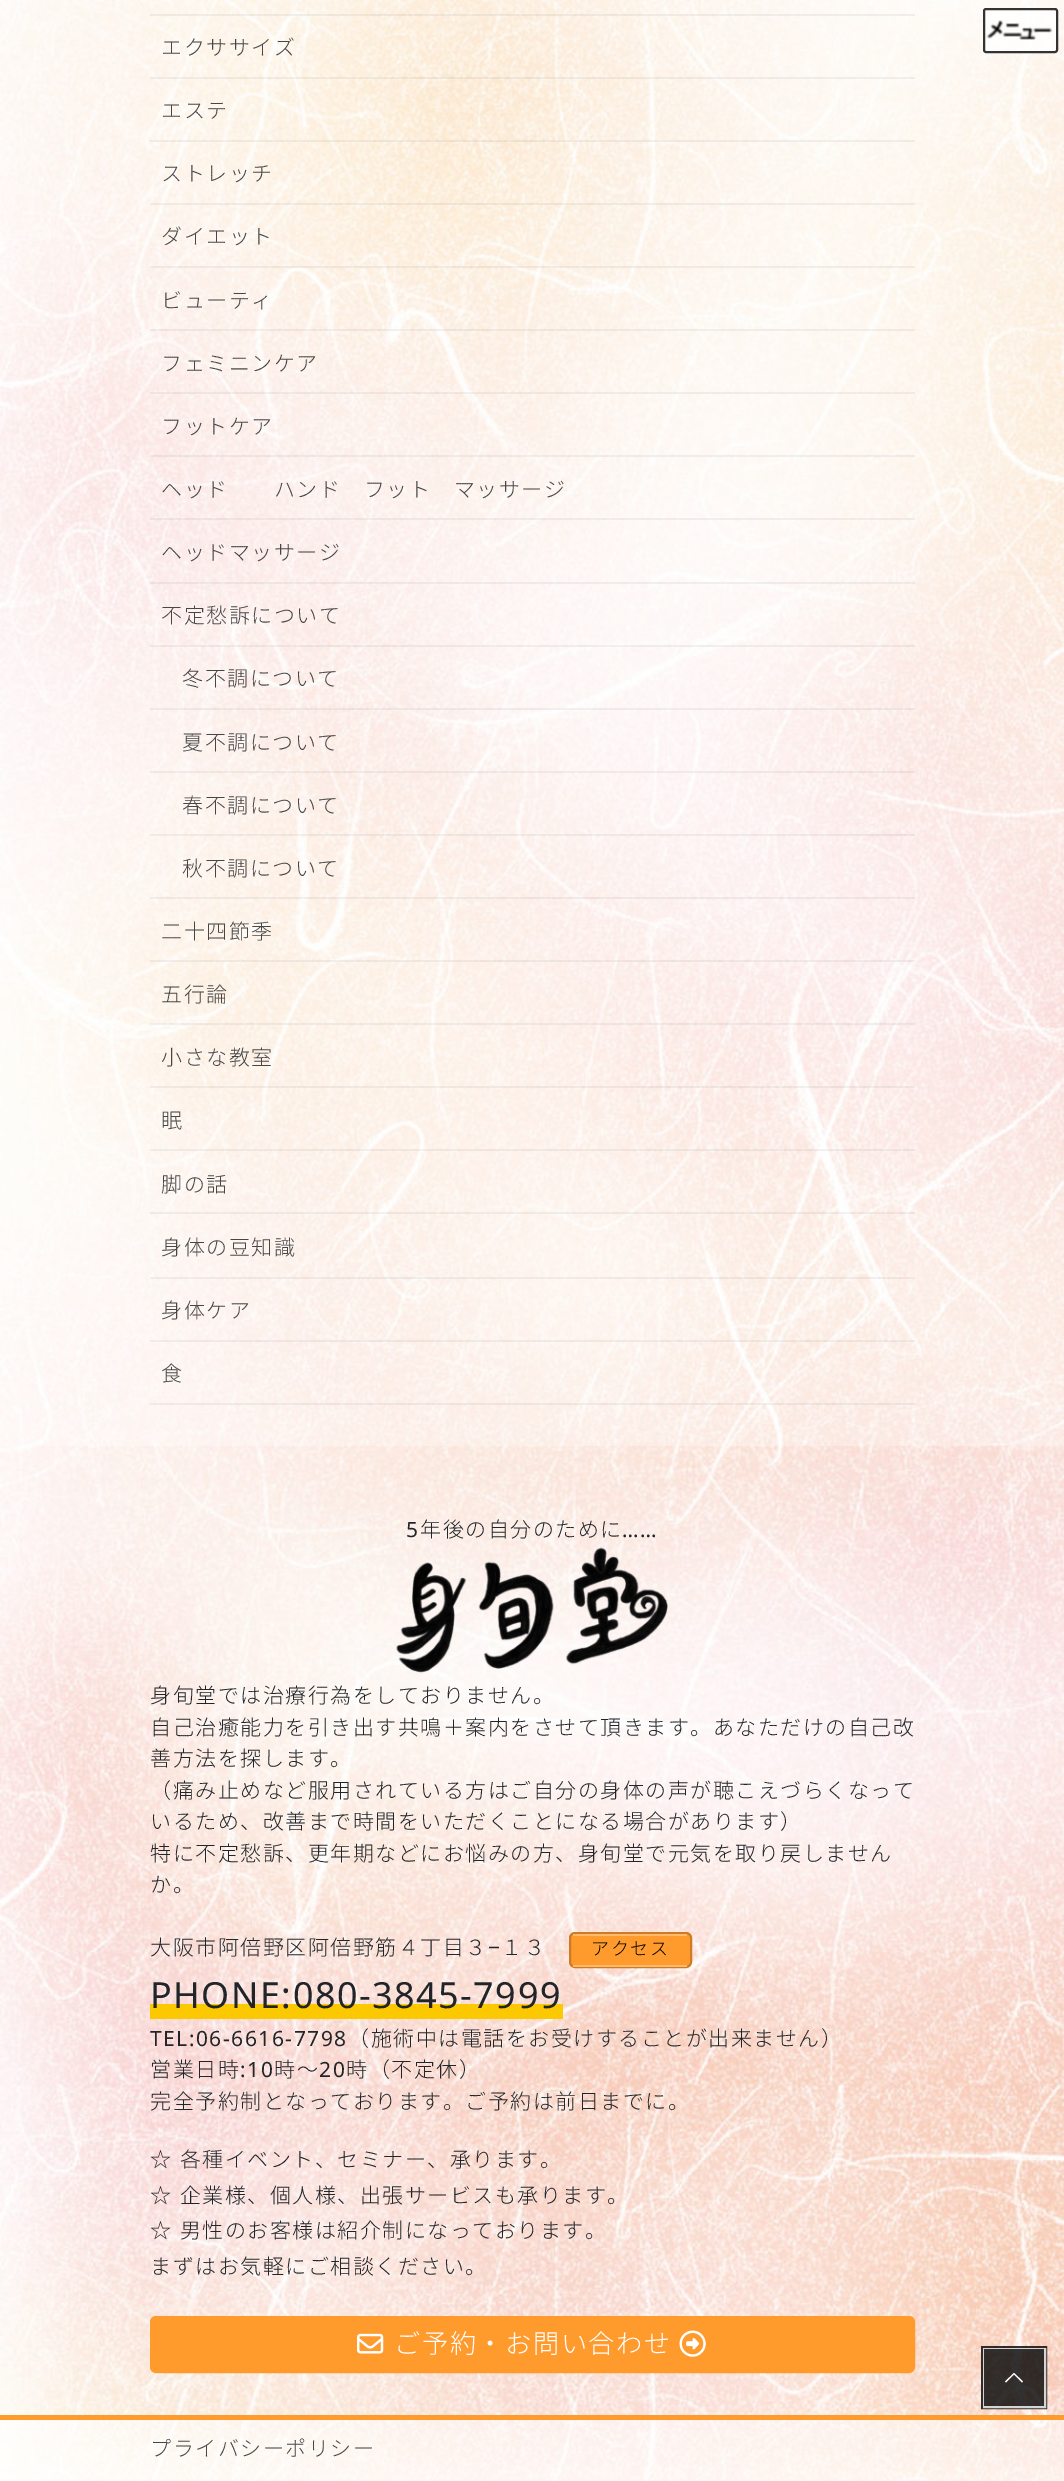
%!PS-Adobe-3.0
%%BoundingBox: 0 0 1064 2481
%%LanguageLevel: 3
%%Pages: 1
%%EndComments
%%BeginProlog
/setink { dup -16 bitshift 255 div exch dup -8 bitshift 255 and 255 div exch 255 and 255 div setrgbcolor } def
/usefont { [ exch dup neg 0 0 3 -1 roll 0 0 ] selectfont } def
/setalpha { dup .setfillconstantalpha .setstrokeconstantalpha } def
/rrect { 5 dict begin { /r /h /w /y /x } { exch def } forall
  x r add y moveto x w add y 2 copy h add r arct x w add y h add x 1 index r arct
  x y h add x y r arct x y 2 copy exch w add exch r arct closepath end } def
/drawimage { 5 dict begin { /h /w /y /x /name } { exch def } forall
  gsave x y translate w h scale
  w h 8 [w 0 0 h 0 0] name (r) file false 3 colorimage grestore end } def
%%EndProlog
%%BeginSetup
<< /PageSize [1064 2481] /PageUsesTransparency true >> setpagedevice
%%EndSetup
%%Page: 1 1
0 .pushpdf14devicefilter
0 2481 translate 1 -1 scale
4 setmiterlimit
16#FFFFFF setink
0 0 1064 2481 rectfill
(img1.raw) 0 0 1064 2481 drawimage
0.3 setalpha
0 0 1064 1446 rectfill
0.8 setalpha
983 8 75 45 3 rrect fill
1 setalpha
(img2.raw) 986 20 67 20 drawimage
16#333333 setink
2 setlinewidth
984 9 73 43 2 rrect stroke
0.05 setalpha
16#000000 setink
150 14 765 2 rectfill
150 77 765 2 rectfill
/NotoSansJP-Thin 21 usefont
1 setalpha
16#464646 setink
161 55 moveto 1.5 0 (エクササイズ) ashow
0.05 setalpha
16#000000 setink
150 140 765 2 rectfill
1 setalpha
16#464646 setink
161 118 moveto 1.5 0 (エステ) ashow
0.05 setalpha
16#000000 setink
150 203 765 2 rectfill
1 setalpha
16#464646 setink
161 181 moveto 1.5 0 (ストレッチ) ashow
0.05 setalpha
16#000000 setink
150 266 765 2 rectfill
1 setalpha
16#464646 setink
161 244 moveto 1.5 0 (ダイエット) ashow
0.05 setalpha
16#000000 setink
150 329 765 2 rectfill
1 setalpha
16#464646 setink
161 308 moveto 1.5 0 (ビューティ) ashow
0.05 setalpha
16#000000 setink
150 392 765 2 rectfill
1 setalpha
16#464646 setink
161 371 moveto 1.5 0 (フェミニンケア) ashow
0.05 setalpha
16#000000 setink
150 455 765 2 rectfill
1 setalpha
16#464646 setink
161 434 moveto 1.5 0 (フットケア) ashow
0.05 setalpha
16#000000 setink
150 518 765 2 rectfill
1 setalpha
16#464646 setink
161 497 moveto 1.5 0 (ヘッド　　ハンド　フット　マッサージ) ashow
0.05 setalpha
16#000000 setink
150 582 765 2 rectfill
1 setalpha
16#464646 setink
161 560 moveto 1.5 0 (ヘッドマッサージ) ashow
0.05 setalpha
16#000000 setink
150 645 765 2 rectfill
1 setalpha
16#464646 setink
161 623 moveto 1.5 0 (不定愁訴について) ashow
0.05 setalpha
16#000000 setink
150 708 765 2 rectfill
1 setalpha
16#464646 setink
182 686 moveto 1.5 0 (冬不調について) ashow
0.05 setalpha
16#000000 setink
150 771 765 2 rectfill
1 setalpha
16#464646 setink
182 750 moveto 1.5 0 (夏不調について) ashow
0.05 setalpha
16#000000 setink
150 834 765 2 rectfill
1 setalpha
16#464646 setink
182 813 moveto 1.5 0 (春不調について) ashow
0.05 setalpha
16#000000 setink
150 897 765 2 rectfill
1 setalpha
16#464646 setink
182 876 moveto 1.5 0 (秋不調について) ashow
0.05 setalpha
16#000000 setink
150 960 765 2 rectfill
1 setalpha
16#464646 setink
161 939 moveto 1.5 0 (二十四節季) ashow
0.05 setalpha
16#000000 setink
150 1023 765 2 rectfill
1 setalpha
16#464646 setink
161 1002 moveto 1.5 0 (五行論) ashow
0.05 setalpha
16#000000 setink
150 1086 765 2 rectfill
1 setalpha
16#464646 setink
161 1065 moveto 1.5 0 (小さな教室) ashow
0.05 setalpha
16#000000 setink
150 1149 765 2 rectfill
1 setalpha
16#464646 setink
161 1128 moveto 1.5 0 (眠) ashow
0.05 setalpha
16#000000 setink
150 1212 765 2 rectfill
1 setalpha
16#464646 setink
161 1192 moveto 1.5 0 (脚の話) ashow
0.05 setalpha
16#000000 setink
150 1277 765 2 rectfill
1 setalpha
16#464646 setink
161 1255 moveto 1.5 0 (身体の豆知識) ashow
0.05 setalpha
16#000000 setink
150 1340 765 2 rectfill
1 setalpha
16#464646 setink
161 1318 moveto 1.5 0 (身体ケア) ashow
0.05 setalpha
16#000000 setink
150 1403 765 2 rectfill
1 setalpha
16#464646 setink
161 1381 moveto 1.5 0 (食) ashow
/NotoSans-Regular 21 usefont
16#212529 setink
406 1537 moveto 1.5 0 (5) ashow
/NotoSansJP-Thin 21 usefont
420 1537 moveto 1.5 0 (年後の自分のために) ashow
/NotoSans-Regular 21 usefont
622 1537 moveto 1.5 0 (……) ashow
(img3.raw) 396 1547 272 126 drawimage
/NotoSansJP-Thin 21 usefont
150 1703 moveto 1.5 0 (身旬堂では治療行為をしておりません。) ashow
150 1735 moveto 1.5 0 (自己治癒能力を引き出す共鳴＋案内をさせて頂きます。あなただけの自己改) ashow
150 1766 moveto 1.5 0 (善方法を探します。) ashow
150 1798 moveto 1.5 0 (（痛み止めなど服用されている方はご自分の身体の声が聴こえづらくなって) ashow
150 1829 moveto 1.5 0 (いるため、改善まで時間をいただくことになる場合があります）) ashow
150 1861 moveto 1.5 0 (特に不定愁訴、更年期などにお悩みの方、身旬堂で元気を取り戻しません) ashow
150 1892 moveto 1.5 0 (か。) ashow
150 1955 moveto 1.5 0 (大阪市阿倍野区阿倍野筋４丁目３) ashow
/NotoSans-Regular 21 usefont
488 1955 moveto 1.5 0 (−) ashow
/NotoSansJP-Thin 21 usefont
501 1955 moveto 1.5 0 (１３) ashow
16#FF9A2D setink
570 1933 121 34 5 rrect gsave fill grestore
16#CC7C24 setink
stroke
16#FFB96C setink
573 1934 114 2 rectfill
573 1965 114 2 rectfill
/NotoSansJP-Thin 18 usefont
16#000000 setink
591 1955 moveto 1.5 0 (アクセス) ashow
16#FCC800 setink
150 2004 413 15 rectfill
/NotoSans-Regular 36 usefont
16#212529 setink
150 2008 moveto 1.5 0 (PHONE:080-3845-7999) ashow
/NotoSans-Regular 21 usefont
150 2046 moveto 1.5 0 (TEL:06-6616-7798) ashow
/NotoSansJP-Thin 21 usefont
348 2046 moveto 1.5 0 (（施術中は電話をお受けすることが出来ません）) ashow
150 2077 moveto 1.5 0 (営業日時) ashow
/NotoSans-Regular 21 usefont
240 2077 moveto 1.5 0 (:10) ashow
/NotoSansJP-Thin 21 usefont
274 2077 moveto 1.5 0 (時～) ashow
/NotoSans-Regular 21 usefont
319 2077 moveto 1.5 0 (20) ashow
/NotoSansJP-Thin 21 usefont
346 2077 moveto 1.5 0 (時（不定休）) ashow
150 2109 moveto 1.5 0 (完全予約制となっております。ご予約は前日までに。) ashow
150 2167 moveto 1 0 32 1.5 0 (☆ 各種イベント、セミナー、承ります。) awidthshow
150 2203 moveto 1 0 32 1.5 0 (☆ 企業様、個人様、出張サービスも承ります。) awidthshow
150 2238 moveto 1 0 32 1.5 0 (☆ 男性のお客様は紹介制になっております。) awidthshow
150 2274 moveto 1.5 0 (まずはお気軽にご相談ください。) ashow
16#FF9A2D setink
151 2317 763 55 5 rrect gsave fill grestore
stroke
(img4.raw) 357 2333 27 21 drawimage
/NotoSansJP-Thin 26.25 usefont
16#FFFFFF setink
394 2353 moveto 1.5 0 (ご予約・お問い合わせ) ashow
(img5.raw) 679 2330 27 27 drawimage
0.8 setalpha
16#000000 setink
3 setlinewidth
982.5 2347.5 63 60 rectstroke
16#FFFFFF setink
2 setlinewidth
984 2349 61 58 rectstroke
16#000000 setink
984 2349 60 57 rectfill
1 setalpha
16#FFFFFF setink
1023 2381.5 moveto 1022 2382.5 lineto 1014 2374.5 lineto 1006 2382.5 lineto 1005 2381.5 lineto 1014 2373 lineto closepath fill
0.5 setalpha
0 2420 1064 61 rectfill
1 setalpha
16#FF9A2D setink
0 2415 1064 5 rectfill
/NotoSansJP-Thin 21 usefont
16#464646 setink
150 2456 moveto 1.5 0 (プライバシーポリシー) ashow
.poppdf14devicefilter showpage
%%EOF
